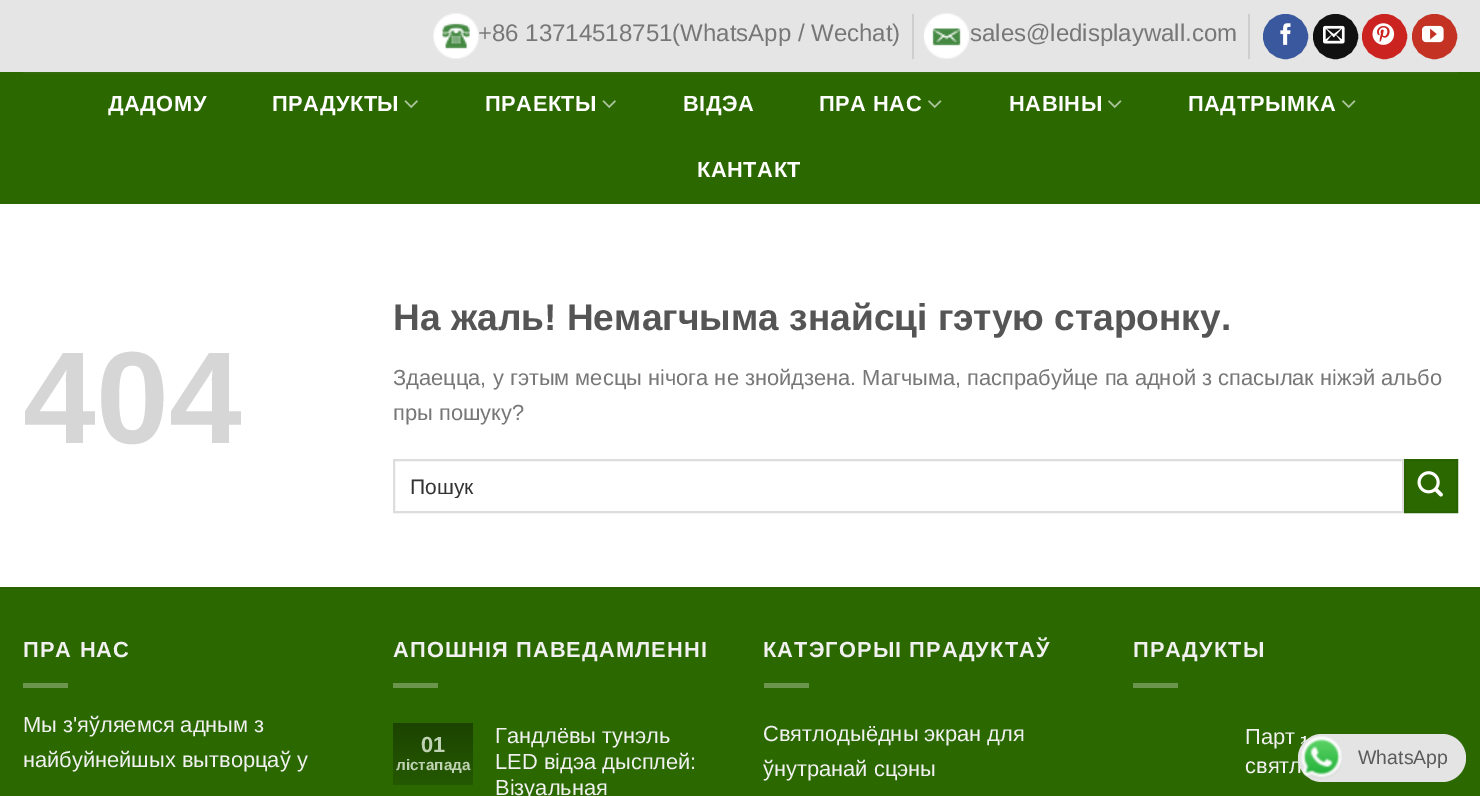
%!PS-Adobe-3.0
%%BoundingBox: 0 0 1480 796
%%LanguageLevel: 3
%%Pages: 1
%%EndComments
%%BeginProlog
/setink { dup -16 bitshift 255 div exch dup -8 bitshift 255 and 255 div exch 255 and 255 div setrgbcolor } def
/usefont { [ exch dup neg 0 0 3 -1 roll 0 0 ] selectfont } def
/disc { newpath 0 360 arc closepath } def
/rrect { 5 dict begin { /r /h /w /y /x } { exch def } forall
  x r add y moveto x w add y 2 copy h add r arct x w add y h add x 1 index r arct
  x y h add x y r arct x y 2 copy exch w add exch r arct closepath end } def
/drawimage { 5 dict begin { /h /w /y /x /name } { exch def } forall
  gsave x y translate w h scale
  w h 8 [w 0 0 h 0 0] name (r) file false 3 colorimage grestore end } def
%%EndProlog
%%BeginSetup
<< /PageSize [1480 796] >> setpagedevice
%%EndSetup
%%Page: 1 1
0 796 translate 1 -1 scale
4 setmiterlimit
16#FFFFFF setink
0 0 1480 796 rectfill
16#E5E5E5 setink
0 0 1480 72 rectfill
(img1.raw) 433 13 46 46 drawimage
/LiberationSans-Regular 24 usefont
16#777777 setink
478 41 moveto (+86 13714518751\(WhatsApp / Wechat\)) show
16#CECECE setink
912 14 2 45 rectfill
(img2.raw) 924 13 45 46 drawimage
16#777777 setink
970 41 moveto (sales@ledisplaywall.com) show
16#CECECE setink
1248 14 2 45 rectfill
16#3A589D setink
1285.5 36.5 21.5 disc gsave fill grestore
2 setlinewidth
stroke
(img3.raw) 1280 23 11 22 drawimage
16#111111 setink
1335.5 36.5 21.5 disc gsave fill grestore
stroke
(img4.raw) 1323 25 22 19 drawimage
16#CB2320 setink
1384.5 36.5 21.5 disc gsave fill grestore
stroke
(img5.raw) 1372 23 23 22 drawimage
16#C33223 setink
1434.5 36.5 21.5 disc gsave fill grestore
stroke
(img6.raw) 1422 25 22 18 drawimage
16#2B6800 setink
0 72 1480 132 rectfill
16#336A0C setink
23 72 1435 2 rectfill
/LiberationSans-Bold 21.85 usefont
16#FFFFFF setink
108 111 moveto 0.5 0 (ДАДОМУ) ashow
272 111 moveto 0.5 0 (ПРАДУКТЫ) ashow
(img7.raw) 404 100 14 8 drawimage
485 111 moveto 0.5 0 (ПРАЕКТЫ) ashow
(img7.raw) 602 100 14 8 drawimage
683 111 moveto 0.5 0 (ВІДЭА) ashow
819 111 moveto 0.5 0 (ПРА НАС) ashow
(img8.raw) 928 100 14 8 drawimage
1009 111 moveto 0.5 0 (НАВІНЫ) ashow
(img8.raw) 1108 100 14 8 drawimage
1188 111 moveto 0.5 0 (ПАДТРЫМКА) ashow
(img8.raw) 1342 100 14 8 drawimage
697 177 moveto 0.5 0 (КАНТАКТ) ashow
/LiberationSans-Bold 131 usefont
16#D6D6D6 setink
23 443 moveto (404) show
/LiberationSans-Bold 37.1 usefont
16#555555 setink
393 330 moveto (На жаль! Немагчыма знайсці гэтую старонку.) show
/LiberationSans-Regular 21.85 usefont
16#777777 setink
393 385 moveto (Здаецца, у гэтым месцы нічога не знойдзена. Магчыма, паспрабуйце па адной з спасылак ніжэй альбо) show
393 420 moveto (пры пошуку?) show
16#DDDDDD setink
394 460 1009 52 rectstroke
gsave
410 474 970 24 rectclip
/LiberationSans-Regular 21 usefont
16#333333 setink
410 494 moveto (Пошук) show
grestore
16#2B6800 setink
1405 460 moveto 1457 460 lineto 1457 512 lineto 1405 512 lineto closepath gsave fill grestore
16#296300 setink
stroke
(img9.raw) 1417 471 26 26 drawimage
16#2B6800 setink
0 589 1480 207 rectfill
16#296300 setink
0 587 1480 2 rectfill
/LiberationSans-Bold 21.85 usefont
16#F1F1F1 setink
23 657 moveto 1.1 0 (ПРА НАС) ashow
16#6B954D setink
23 683 45 5 rectfill
/LiberationSans-Regular 21.85 usefont
16#F1F1F1 setink
23 732 moveto (Мы з'яўляемся адным з) show
23 767 moveto (найбуйнейшых вытворцаў у) show
/LiberationSans-Bold 21.85 usefont
393 657 moveto 1.1 0 (АПОШНІЯ ПАВЕДАМЛЕННІ) ashow
16#6B954D setink
393 683 45 5 rectfill
gsave 393 723 moveto 473 723 lineto 473 785 lineto 393 785 lineto closepath clip newpath
<< /ShadingType 2 /ColorSpace /DeviceRGB /Coords [433 723 433 785] /Extend [true true] /Function << /FunctionType 2 /Domain [0 1] /C0 [0.11 0.267 0] /C1 [0.145 0.349 0] /N 1 >> >> shfill grestore
16#BFD2B3 setink
421 752 moveto (01) show
/LiberationSans-Bold 15.25 usefont
396 770 moveto (лістапада) show
/LiberationSans-Regular 21.85 usefont
16#F1F1F1 setink
[
    [(Гандлёвы тунэль) 495 743]
    [(LED відэа дысплей:) 495 769]
    [(Візуальная) 495 795]
] { aload pop moveto show } forall
/LiberationSans-Bold 21.85 usefont
763 657 moveto 1.1 0 (КАТЭГОРЫІ ПРАДУКТАЎ) ashow
16#6B954D setink
764 683 45 5 rectfill
/LiberationSans-Regular 21.85 usefont
16#F1F1F1 setink
763 741 moveto (Святлодыёдны экран для) show
763 776 moveto (ўнутранай сцэны) show
/LiberationSans-Bold 21.85 usefont
1133 657 moveto 1.1 0 (ПРАДУКТЫ) ashow
16#6B954D setink
1133 683 45 5 rectfill
/LiberationSans-Regular 21.85 usefont
16#F1F1F1 setink
1245 744 moveto (Парт) show
1245 773 moveto (святл) show
16#E4E4E4 setink
1298 734 168 48 24 rrect fill
(img10.raw) 1301 736 41 43 drawimage
/LiberationSans-Regular 19.5 usefont
16#5B5B5B setink
1358 764 moveto (WhatsApp) show
showpage
%%EOF
